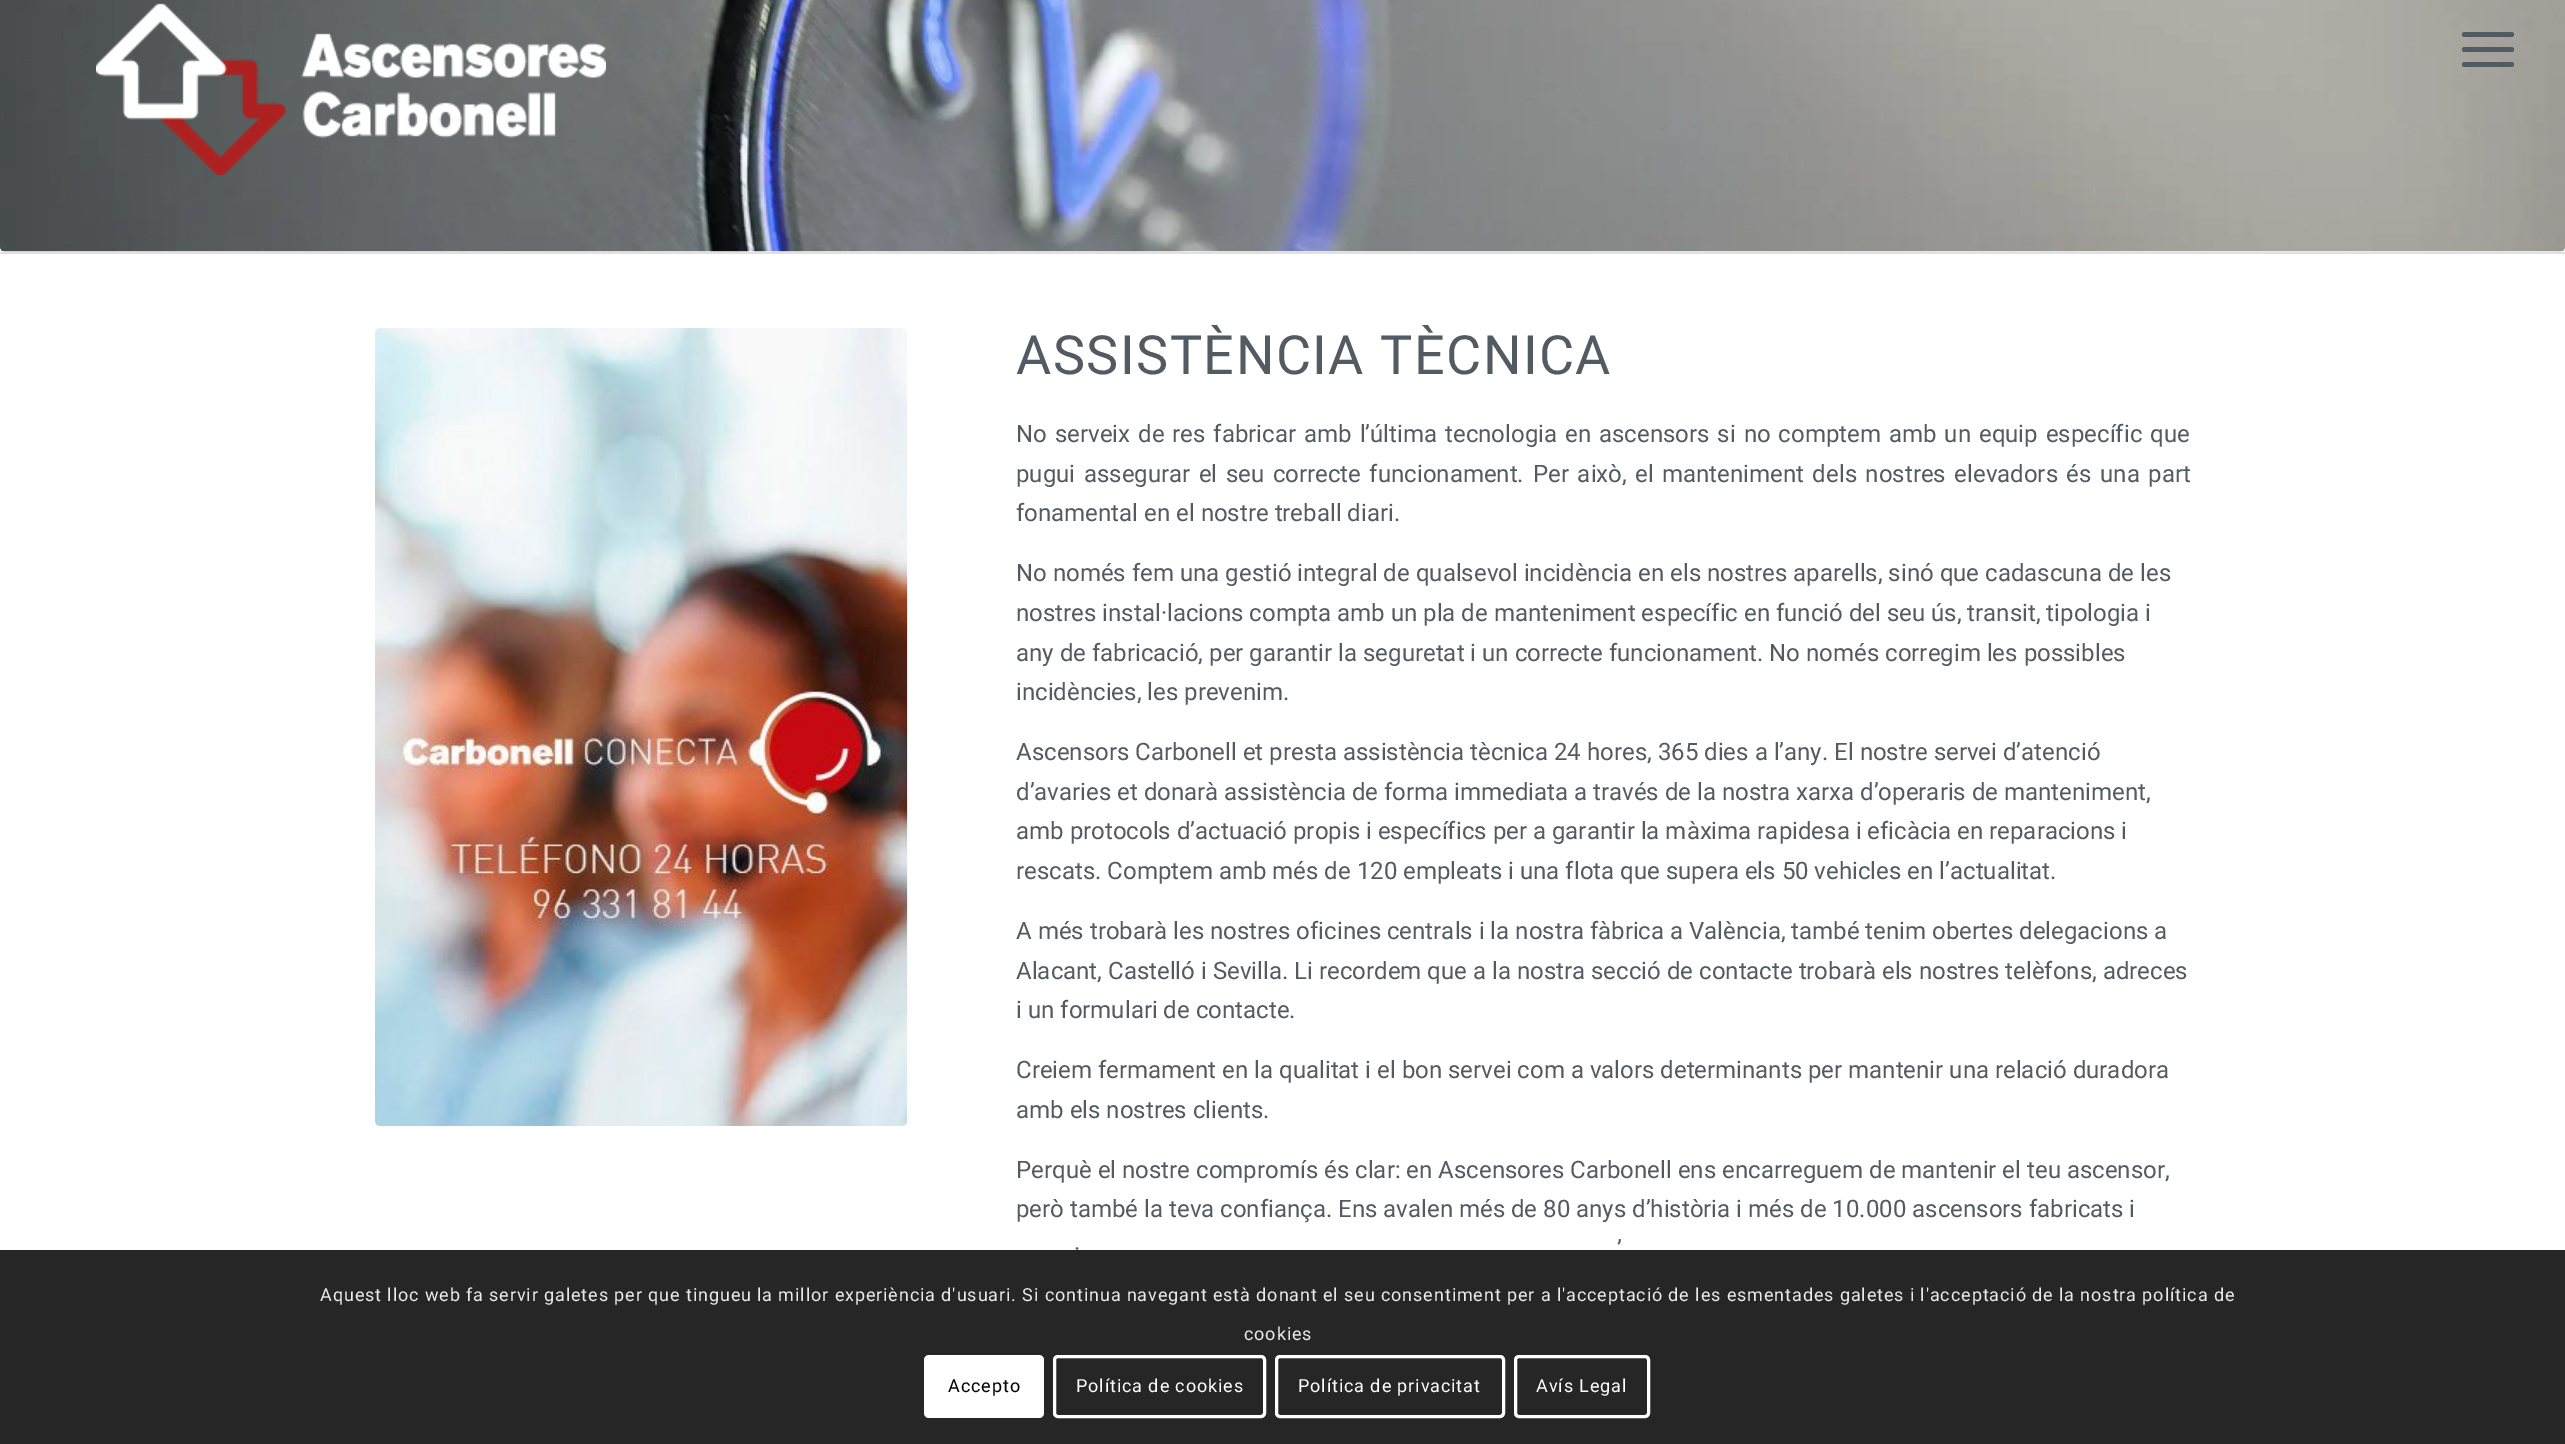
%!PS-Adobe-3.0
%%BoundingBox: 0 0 2565 1444
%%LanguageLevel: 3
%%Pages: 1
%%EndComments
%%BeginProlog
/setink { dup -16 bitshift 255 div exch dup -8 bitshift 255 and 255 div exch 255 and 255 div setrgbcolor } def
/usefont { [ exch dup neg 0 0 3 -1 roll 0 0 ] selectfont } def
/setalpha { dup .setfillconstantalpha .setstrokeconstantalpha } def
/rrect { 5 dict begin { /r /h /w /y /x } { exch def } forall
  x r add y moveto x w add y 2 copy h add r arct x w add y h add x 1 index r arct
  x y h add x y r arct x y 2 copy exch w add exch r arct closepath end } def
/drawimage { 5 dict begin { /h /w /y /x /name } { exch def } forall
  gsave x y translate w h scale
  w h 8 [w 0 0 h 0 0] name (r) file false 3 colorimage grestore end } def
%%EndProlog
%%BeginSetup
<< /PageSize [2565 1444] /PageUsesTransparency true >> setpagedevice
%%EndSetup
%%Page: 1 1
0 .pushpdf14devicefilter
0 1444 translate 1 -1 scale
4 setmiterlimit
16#FFFFFF setink
0 0 2565 1444 rectfill
(img2.raw) 0 0 2565 252 drawimage
(img1.raw) 96 3 510 173 drawimage
16#525A62 setink
2462 47 52 5 2.5 rrect fill
2462 32 52 5 2.5 rrect fill
2462 62 52 5 2.5 rrect fill
16#E1E1E1 setink
0 252 2565 2 rectfill
(img3.raw) 375 328 533 798 drawimage
/Roboto-Regular 54 usefont
16#525A62 setink
1016 374 moveto 1.5 0 (ASSISTÈNCIA TÈCNICA) ashow
/Roboto-Regular 24 usefont
1016 442 moveto 2 0 32 (No serveix de res fabricar amb l’última tecnologia en ascensors si no comptem amb un equip específic que) widthshow
1016 482 moveto 2.5 0 32 (pugui assegurar el seu correcte funcionament.) widthshow
1533 482 moveto 2.5 0 32 (Per això, el manteniment dels nostres elevadors és una part) widthshow
[
    [(fonamental en el nostre treball diari.) 1016 521]
    [(No només fem una gestió integral de qualsevol incidència en els nostres aparells, sinó que cadascuna de les) 1016 581]
    [(nostres instal·lacions compta amb un pla de manteniment específic en funció del seu ús, transit, tipologia i) 1016 621]
    [(any de fabricació, per garantir la seguretat i un correcte funcionament. No només corregim les possibles) 1016 661]
    [(incidències, les prevenim.) 1016 700]
    [(Ascensors Carbonell et presta assistència tècnica 24 hores, 365 dies a l’any. El nostre servei d’atenció) 1016 760]
    [(d’avaries et donarà assistència de forma immediata a través de la nostra xarxa d’operaris de manteniment,) 1016 800]
    [(amb protocols d’actuació propis i específics per a garantir la màxima rapidesa i eficàcia en reparacions i) 1016 839]
    [(rescats. Comptem amb més de 120 empleats i una flota que supera els 50 vehicles en l’actualitat.) 1016 879]
    [(A més trobarà les nostres oficines centrals i la nostra fàbrica a València, també tenim obertes delegacions a) 1016 939]
    [(Alacant, Castelló i Sevilla. Li recordem que a la nostra secció de contacte trobarà els nostres telèfons, adreces) 1016 979]
    [(i un formulari de contacte.) 1016 1018]
    [(Creiem fermament en la qualitat i el bon servei com a valors determinants per mantenir una relació duradora) 1016 1078]
    [(amb els nostres clients.) 1016 1118]
    [(Perquè el nostre compromís és clar: en Ascensores Carbonell ens encarreguem de mantenir el teu ascensor,) 1016 1178]
    [(però també la teva confiança. Ens avalen més de 80 anys d’història i més de 10.000 ascensors fabricats i) 1016 1217]
    [(’) 1617 1257]
    [(·) 1074 1257]
] { aload pop moveto show } forall
0.85 setalpha
16#000000 setink
0 1250 2565 194 rectfill
/Roboto-Regular 18 usefont
1 setalpha
16#E9E9E9 setink
320 1301 moveto 0.9 0 (Aquest lloc web fa servir galetes per que tingueu la millor experiència d'usuari. Si continua navegant està donant el seu consentiment per a l'acceptació de les esmentades galetes i l'acceptació de la nostra política de) ashow
1244 1340 moveto 0.9 0 (cookies) ashow
16#FFFFFF setink
924 1355 120 63 5 rrect fill
16#000000 setink
948 1392 moveto 0.9 0 (Accepto) ashow
16#FFFFFF setink
3 setlinewidth
1054.5 1356.5 210 60 3.5 rrect stroke
1076 1392 moveto 0.9 0 (Política de cookies) ashow
1276.5 1356.5 227 60 3.5 rrect stroke
1298 1392 moveto 0.9 0 (Política de privacitat) ashow
1515.5 1356.5 133 60 3.5 rrect stroke
1536 1392 moveto 0.9 0 (Avís Legal) ashow
.poppdf14devicefilter showpage
%%EOF
